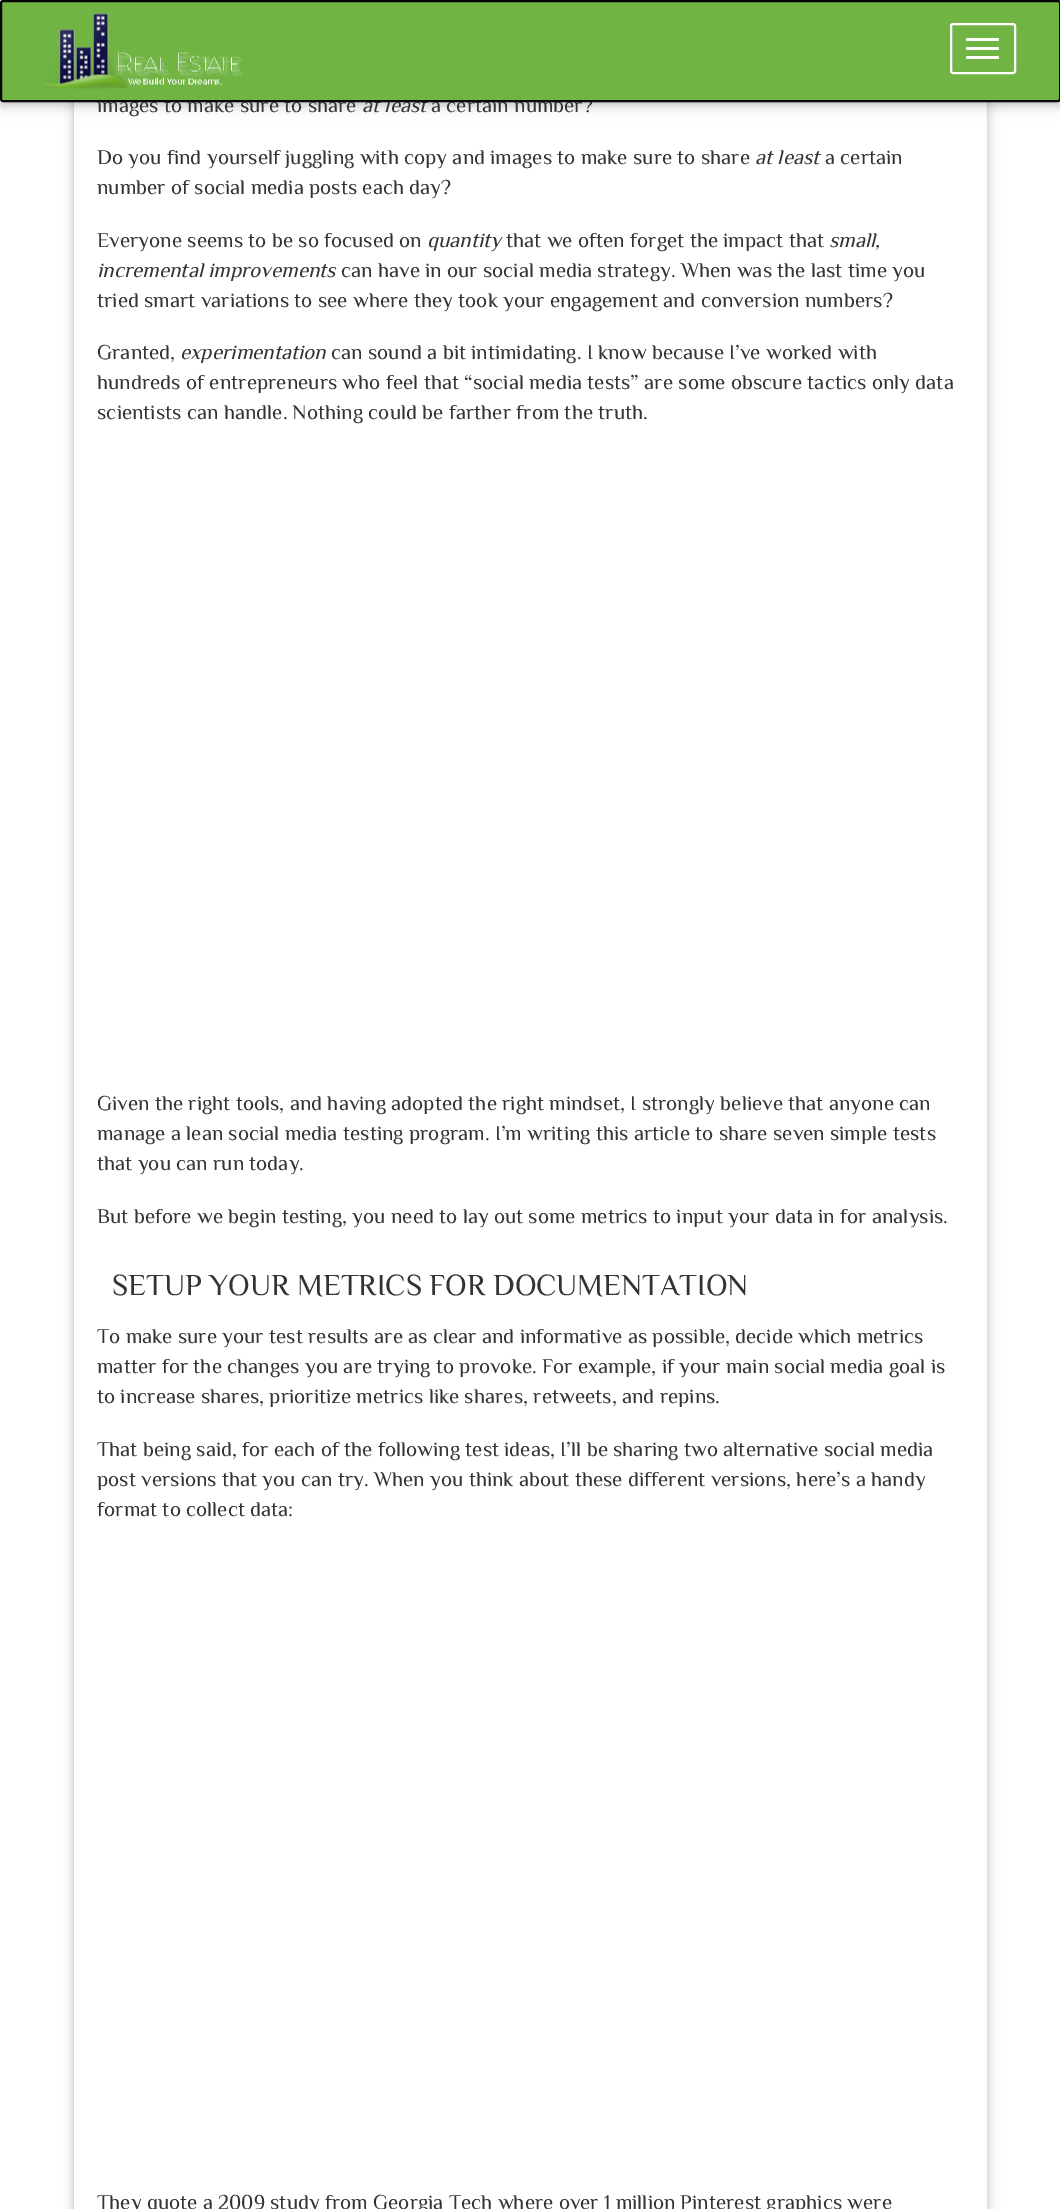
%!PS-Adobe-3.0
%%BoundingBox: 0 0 1060 2209
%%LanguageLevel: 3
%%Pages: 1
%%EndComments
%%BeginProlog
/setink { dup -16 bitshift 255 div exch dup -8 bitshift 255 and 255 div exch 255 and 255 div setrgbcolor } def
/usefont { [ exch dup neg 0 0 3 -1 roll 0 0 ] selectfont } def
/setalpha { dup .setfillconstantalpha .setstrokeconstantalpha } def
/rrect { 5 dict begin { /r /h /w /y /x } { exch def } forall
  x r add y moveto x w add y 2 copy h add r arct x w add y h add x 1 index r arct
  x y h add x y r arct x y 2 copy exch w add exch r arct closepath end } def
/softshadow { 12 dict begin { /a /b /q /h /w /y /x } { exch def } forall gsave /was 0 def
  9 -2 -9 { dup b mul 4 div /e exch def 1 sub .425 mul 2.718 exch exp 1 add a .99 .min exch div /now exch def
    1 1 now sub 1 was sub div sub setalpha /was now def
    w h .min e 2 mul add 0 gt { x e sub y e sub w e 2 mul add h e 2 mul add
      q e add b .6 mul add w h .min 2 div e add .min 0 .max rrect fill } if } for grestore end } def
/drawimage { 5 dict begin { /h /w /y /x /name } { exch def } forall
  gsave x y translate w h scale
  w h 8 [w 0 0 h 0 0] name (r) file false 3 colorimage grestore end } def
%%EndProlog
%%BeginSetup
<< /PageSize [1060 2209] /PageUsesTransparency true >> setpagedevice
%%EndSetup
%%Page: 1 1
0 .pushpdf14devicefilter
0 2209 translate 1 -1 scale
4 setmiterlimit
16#FFFFFF setink
0 0 1060 2209 rectfill
16#000000 setink
0 3 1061 102 3 7.5 0.12 softshadow
0 3 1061 102 3 4 0.16 softshadow
gsave
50 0 moveto 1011 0 lineto 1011 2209 lineto 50 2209 lineto closepath 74 -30 moveto 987 -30 lineto 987 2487 lineto 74 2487 lineto closepath eoclip newpath
74 -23 913 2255 0 7.5 0.12 softshadow
grestore
gsave
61 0 moveto 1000 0 lineto 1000 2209 lineto 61 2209 lineto closepath 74 -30 moveto 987 -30 lineto 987 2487 lineto 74 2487 lineto closepath eoclip newpath
74 -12 913 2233 0 4 0.16 softshadow
grestore
/Philosopher-Regular 21 usefont
16#333333 setink
97 112 moveto (images to make sure to share) show
/Philosopher-Italic 21 usefont
362 112 moveto (at least) show
/Philosopher-Regular 21 usefont
431 112 moveto (a certain number?) show
16#70B444 setink
1 1 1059 100 2 rrect gsave fill grestore
16#080808 setink
2 setlinewidth
stroke
(img1.raw) 41 13 203 76 drawimage
16#FFFFFF setink
951 24 64 49 2 rrect stroke
966 38 33 3 1.5 rrect fill
966 47 33 3 1.5 rrect fill
966 56 33 3 1.5 rrect fill
16#333333 setink
97 164 moveto (Do you find yourself juggling with copy and images to make sure to share) show
/Philosopher-Italic 21 usefont
755 164 moveto (at least) show
/Philosopher-Regular 21 usefont
[
    [(a certain) 825 164]
    [(number of social media posts each day?) 97 194]
    [(Everyone seems to be so focused on) 97 247]
] { aload pop moveto show } forall
/Philosopher-Italic 21 usefont
427 247 moveto (quantity) show
/Philosopher-Regular 21 usefont
506 247 moveto (that we often forget the impact that) show
/Philosopher-Italic 21 usefont
829 247 moveto (small,) show
97 277 moveto (incremental improvements) show
/Philosopher-Regular 21 usefont
[
    [(can have in our social media strategy. When was the last time you) 341 277]
    [(tried smart variations to see where they took your engagement and conversion numbers?) 97 307]
    [(Granted,) 97 359]
] { aload pop moveto show } forall
/Philosopher-Italic 21 usefont
180 359 moveto (experimentation) show
/Philosopher-Regular 21 usefont
[
    [(can sound a bit intimidating. I know because I’ve worked with) 331 359]
    [(hundreds of entrepreneurs who feel that “social media tests” are some obscure tactics only data) 97 389]
    [(scientists can handle. Nothing could be farther from the truth.) 97 419]
    [(Given the right tools, and having adopted the right mindset, I strongly believe that anyone can) 97 1110]
    [(manage a lean social media testing program. I’m writing this article to share seven simple tests) 97 1140]
    [(that you can run today.) 97 1170]
    [(But before we begin testing, you need to lay out some metrics to input your data in for analysis.) 97 1223]
] { aload pop moveto show } forall
/Philosopher-Regular 30.45 usefont
112 1295 moveto (SETUP YOUR METRICS FOR DOCUMENTATION) show
/Philosopher-Regular 21 usefont
[
    [(To make sure your test results are as clear and informative as possible, decide which metrics) 97 1343]
    [(matter for the changes you are trying to provoke. For example, if your main social media goal is) 97 1373]
    [(to increase shares, prioritize metrics like shares, retweets, and repins.) 97 1403]
    [(That being said, for each of the following test ideas, I’ll be sharing two alternative social media) 97 1456]
    [(post versions that you can try. When you think about these different versions, here’s a handy) 97 1486]
    [(format to collect data:) 97 1516]
    [(They quote a 2009 study from Georgia Tech where over 1 million Pinterest graphics were) 97 2209]
] { aload pop moveto show } forall
.poppdf14devicefilter showpage
%%EOF
